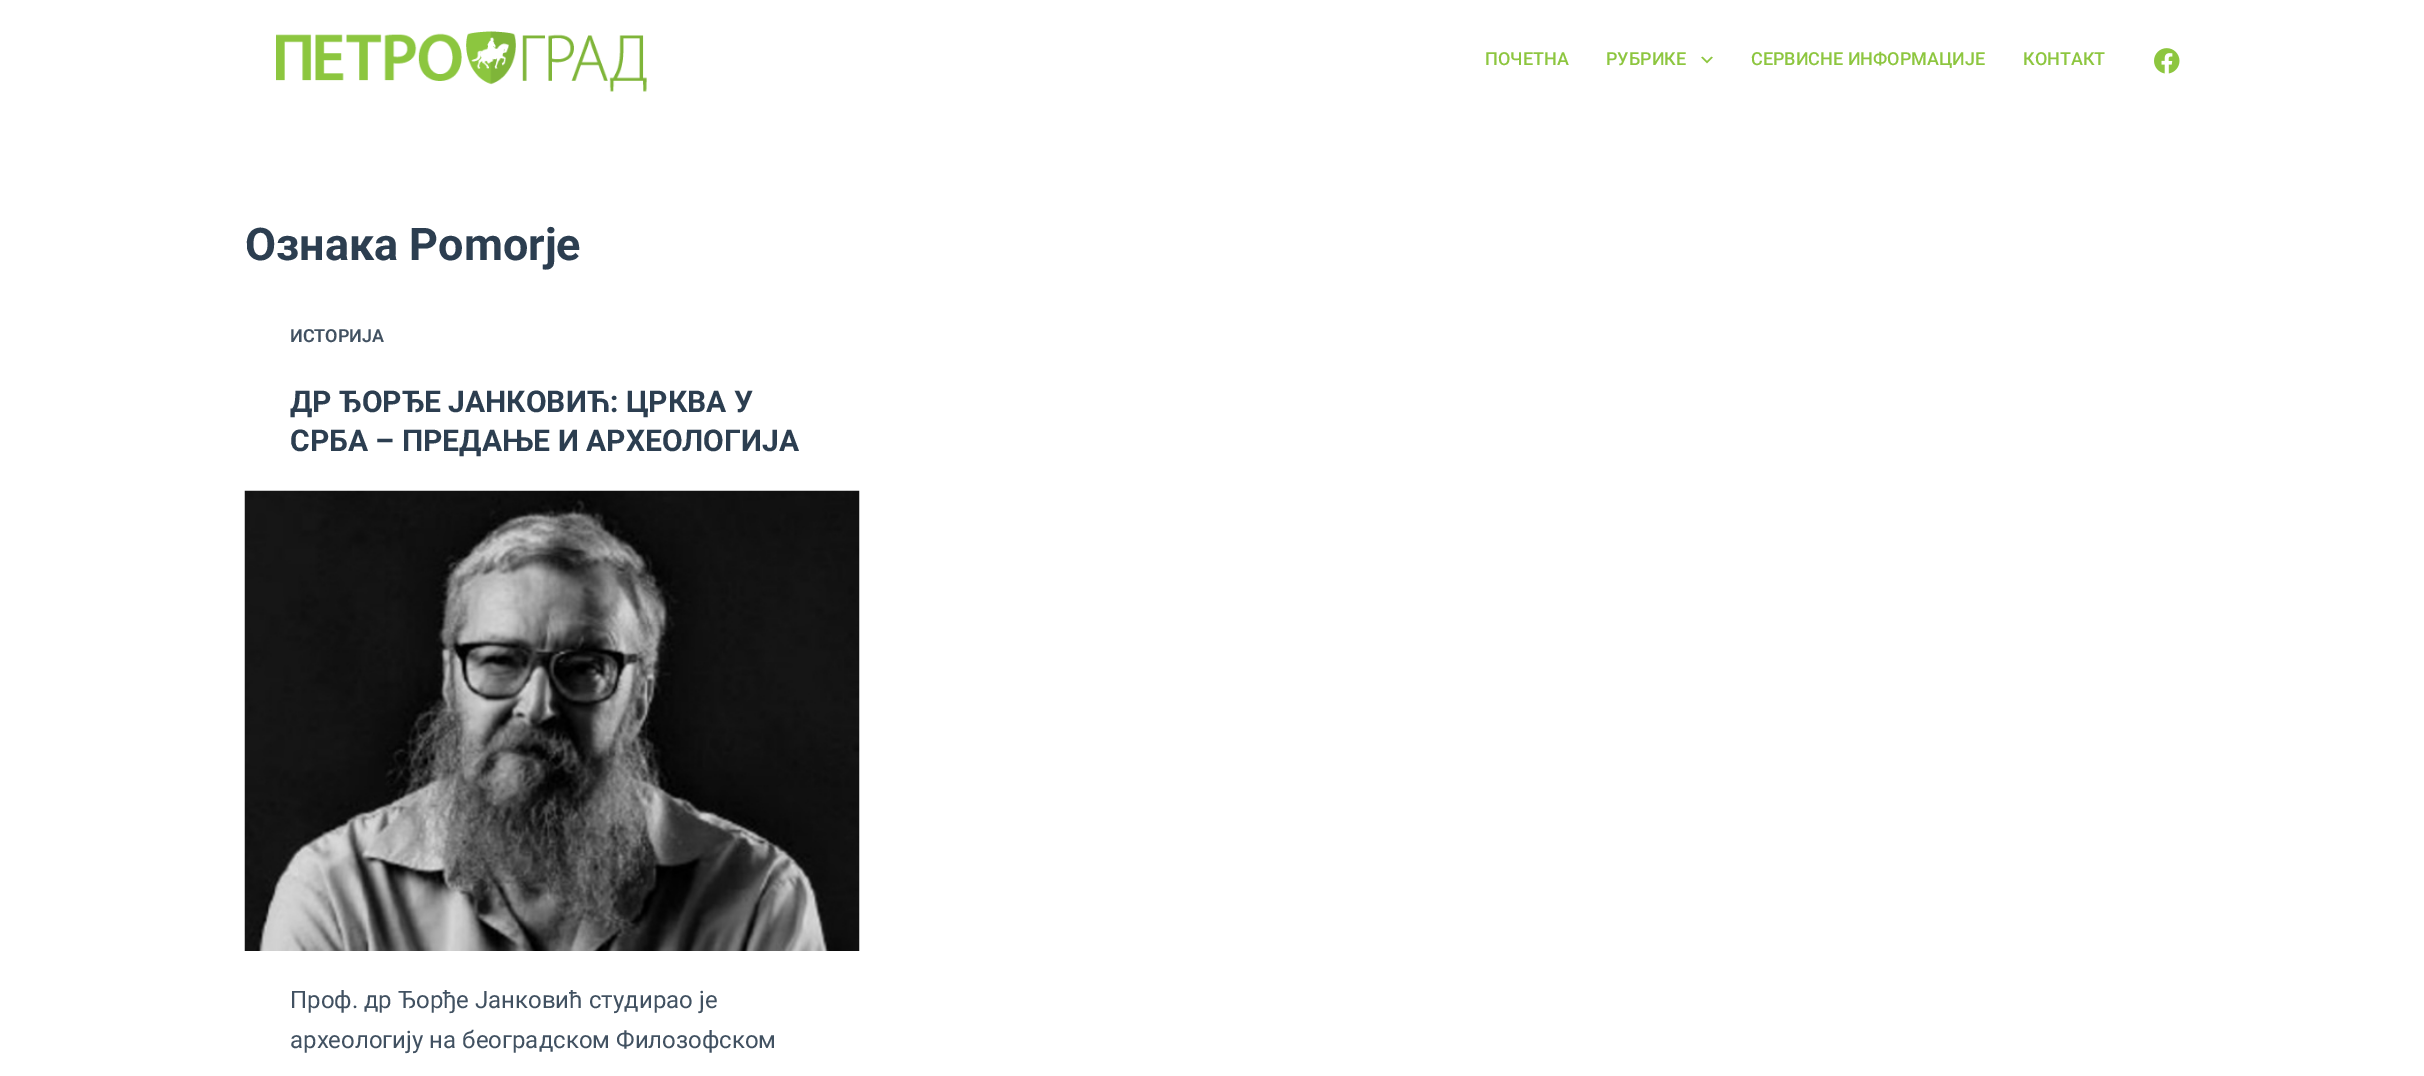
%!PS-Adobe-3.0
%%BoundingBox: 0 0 2424 1076
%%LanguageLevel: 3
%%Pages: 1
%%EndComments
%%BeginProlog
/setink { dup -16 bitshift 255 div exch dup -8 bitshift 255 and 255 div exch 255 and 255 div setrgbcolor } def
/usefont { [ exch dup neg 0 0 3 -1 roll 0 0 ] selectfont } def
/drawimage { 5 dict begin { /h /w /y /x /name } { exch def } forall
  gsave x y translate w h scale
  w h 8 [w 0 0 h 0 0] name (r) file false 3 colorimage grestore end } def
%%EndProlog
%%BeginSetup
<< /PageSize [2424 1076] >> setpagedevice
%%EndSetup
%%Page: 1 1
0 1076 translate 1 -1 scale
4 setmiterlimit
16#FFFFFF setink
0 0 2424 1076 rectfill
(img1.raw) 276 31 371 61 drawimage
/Roboto-Medium 18 usefont
16#8DC63F setink
1485 65 moveto (ПОЧЕТНА) show
1606 65 moveto (РУБРИКЕ) show
(img2.raw) 1701 56 12 8 drawimage
1751 65 moveto (СЕРВИСНЕ ИНФОРМАЦИЈЕ) show
2023 65 moveto (КОНТАКТ) show
(img3.raw) 2154 48 26 26 drawimage
/Roboto-Bold 45 usefont
16#2C3E50 setink
245 260 moveto (Ознака Pomorje) show
/Roboto-SemiBold 18 usefont
16#415161 setink
290 342 moveto (ИСТОРИЈА) show
/Roboto-Bold 30 usefont
16#2C3E50 setink
290 412 moveto (ДР ЂОРЂЕ ЈАНКОВИЋ: ЦРКВА У) show
290 451 moveto (СРБА – ПРЕДАЊЕ И АРХЕОЛОГИЈА) show
(img4.raw) 244 490 616 461 drawimage
/Roboto-Regular 24 usefont
16#415161 setink
290 1008 moveto (Проф. др Ђорђе Јанковић студирао је) show
290 1048 moveto (археологију на београдском Филозофском) show
showpage
%%EOF
